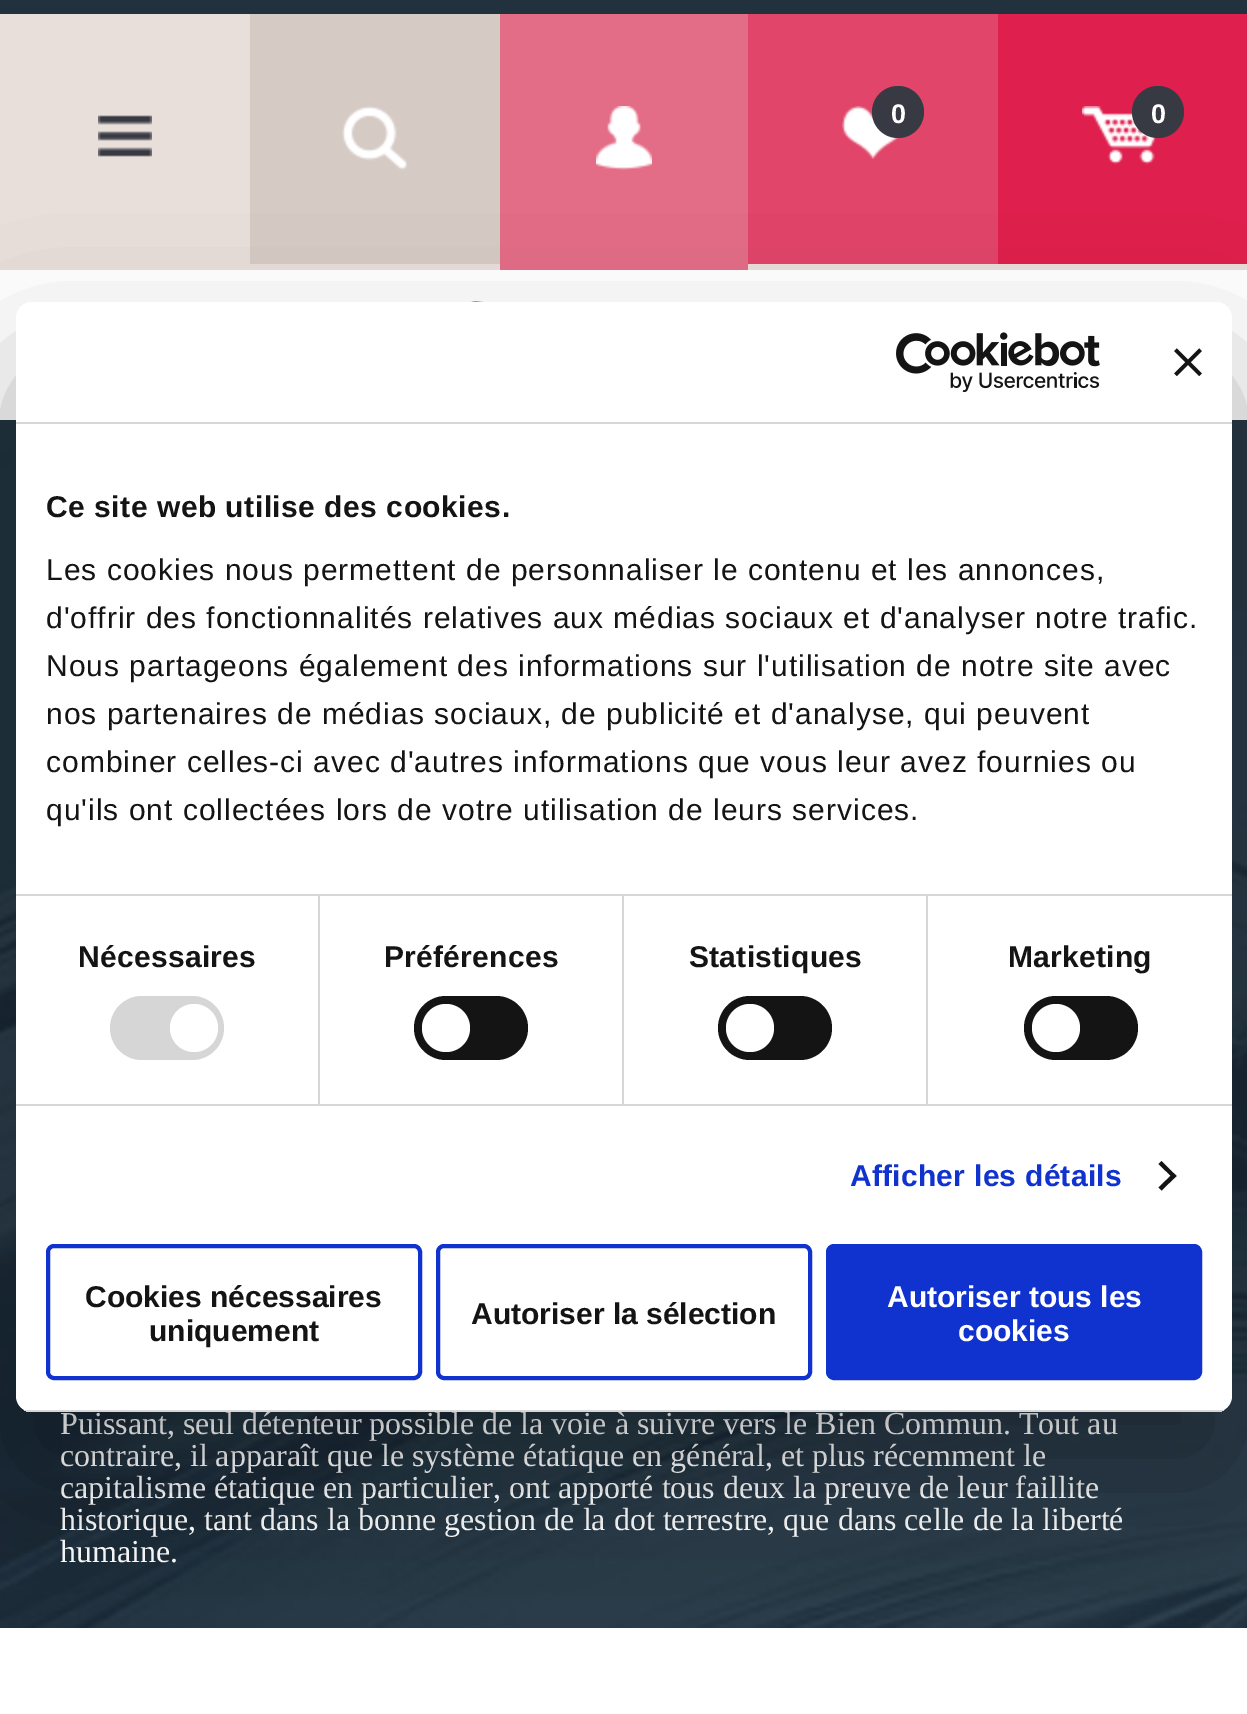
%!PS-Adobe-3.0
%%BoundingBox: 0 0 1247 1714
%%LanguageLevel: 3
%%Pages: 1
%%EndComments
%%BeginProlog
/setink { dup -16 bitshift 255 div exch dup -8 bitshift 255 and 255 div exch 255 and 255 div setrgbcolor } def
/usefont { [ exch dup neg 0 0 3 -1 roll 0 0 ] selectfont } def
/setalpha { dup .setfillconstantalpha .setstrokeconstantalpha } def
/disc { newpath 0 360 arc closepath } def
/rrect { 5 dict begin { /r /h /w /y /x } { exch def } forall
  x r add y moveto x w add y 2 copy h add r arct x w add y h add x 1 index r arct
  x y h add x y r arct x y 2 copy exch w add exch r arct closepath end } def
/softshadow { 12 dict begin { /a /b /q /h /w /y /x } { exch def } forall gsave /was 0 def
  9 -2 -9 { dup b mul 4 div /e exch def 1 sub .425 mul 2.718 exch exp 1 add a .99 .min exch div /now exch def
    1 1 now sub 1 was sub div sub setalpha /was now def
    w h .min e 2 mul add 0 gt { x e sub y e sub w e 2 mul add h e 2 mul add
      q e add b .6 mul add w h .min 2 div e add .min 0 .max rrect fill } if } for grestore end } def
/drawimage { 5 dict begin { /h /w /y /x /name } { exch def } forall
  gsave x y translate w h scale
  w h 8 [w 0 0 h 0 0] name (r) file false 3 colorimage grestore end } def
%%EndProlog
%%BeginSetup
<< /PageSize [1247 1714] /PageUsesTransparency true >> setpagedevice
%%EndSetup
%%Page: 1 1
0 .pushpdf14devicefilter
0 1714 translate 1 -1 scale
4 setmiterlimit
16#FFFFFF setink
0 0 1247 1714 rectfill
16#21313E setink
0 0 1247 14 rectfill
16#E8DFDB setink
0 14 1247 256 rectfill
(img1.raw) 98 115 54 42 drawimage
16#D5CAC4 setink
250 14 250 250 rectfill
(img2.raw) 342 106 66 64 drawimage
16#E36C86 setink
500 14 248 256 rectfill
(img3.raw) 596 106 56 64 drawimage
16#E14569 setink
748 14 250 250 rectfill
(img4.raw) 842 106 57 54 drawimage
16#373943 setink
898 112 26 disc fill
/LiberationSans-Bold 27 usefont
16#FFFFFF setink
891 123 moveto (0) show
16#DF1F4D setink
998 14 249 250 rectfill
(img5.raw) 1082 106 75 59 drawimage
16#373943 setink
1158 112 26 disc fill
16#FFFFFF setink
1151 123 moveto (0) show
(img6.raw) 471 301 13 1 drawimage
(img7.raw) 0 420 1247 1208 drawimage
/LiberationSerif-Regular 32 usefont
[
    [(Puissant, seul détenteur possible de la voie à suivre vers le Bien Commun. Tout au) 60 1434]
    [(contraire, il apparaît que le système étatique en général, et plus récemment le) 60 1466]
    [(capitalisme étatique en particulier, ont apporté tous deux la preuve de leur faillite) 60 1498]
    [(historique, tant dans la bonne gestion de la dot terrestre, que dans celle de la liberté) 60 1530]
    [(humaine.) 60 1562]
] { aload pop moveto show } forall
16#000000 setink
16 366 1216 1110 16 68 0.3 softshadow
16#FFFFFF setink
16 302 1216 1110 16 rrect fill
16#D6D6D6 setink
16 422 1216 2 rectfill
(img8.raw) 896 332 204 60 drawimage
(img9.raw) 1174 348 28 28 drawimage
16 894 1216 2 rectfill
/LiberationSans-Bold 30 usefont
16#141414 setink
46 517 moveto 0.5 0 (Ce site web utilise des cookies.) ashow
/LiberationSans-Regular 30 usefont
46 580 moveto 1 0 (Les cookies nous permettent de personnaliser le contenu et les annonces,) ashow
46 628 moveto 1 0 (d'offrir des fonctionnalités relatives aux médias sociaux et d'analyser notre trafic.) ashow
46 676 moveto 1 0 (Nous partageons également des informations sur l'utilisation de notre site avec) ashow
46 724 moveto 1 0 (nos partenaires de médias sociaux, de publicité et d'analyse, qui peuvent) ashow
46 772 moveto 1 0 (combiner celles-ci avec d'autres informations que vous leur avez fournies ou) ashow
46 820 moveto 1 0 (qu'ils ont collectées lors de votre utilisation de leurs services.) ashow
16#D6D6D6 setink
16 1104 1216 2 rectfill
318 896 2 208 rectfill
/LiberationSans-Bold 30 usefont
16#141414 setink
78 967 moveto 0.25 0 (Nécessaires) ashow
16#D6D6D6 setink
110 996 114 64 32 rrect fill
16#FFFFFF setink
194 1028 24 disc fill
16#D6D6D6 setink
622 896 2 208 rectfill
16#141414 setink
384 967 moveto 0.25 0 (Préférences) ashow
414 996 114 64 32 rrect fill
16#FFFFFF setink
446 1028 24 disc fill
16#D6D6D6 setink
926 896 2 208 rectfill
16#141414 setink
689 967 moveto 0.25 0 (Statistiques) ashow
718 996 114 64 32 rrect fill
16#FFFFFF setink
750 1028 24 disc fill
16#141414 setink
1008 967 moveto 0.25 0 (Marketing) ashow
1024 996 114 64 32 rrect fill
16#FFFFFF setink
1056 1028 24 disc fill
16#1032CF setink
850 1186 moveto 0.25 0 (Afficher les détails) ashow
16#141414 setink
1161.5 1161 moveto 1176.5 1176 lineto 1173.5 1178.5 lineto 1158.5 1164 lineto closepath fill
1173.5 1173 moveto 1176.5 1176 lineto 1161.5 1190.5 lineto 1158.5 1187.5 lineto closepath fill
gsave
16 302 1216 1110 16 rrect clip newpath
16#D6D6D6 setink
16 1410 1216 2 rectfill
grestore
16#1032CF setink
4 setlinewidth
48 1246 372 132 6 rrect stroke
16#141414 setink
85 1307 moveto (Cookies nécessaires) show
149 1341 moveto (uniquement) show
16#1032CF setink
438 1246 372 132 6 rrect stroke
16#141414 setink
471 1324 moveto (Autoriser la sélection) show
16#1032CF setink
828 1246 372 132 6 rrect gsave fill grestore
stroke
16#FFFFFF setink
887 1307 moveto (Autoriser tous les) show
958 1341 moveto (cookies) show
.poppdf14devicefilter showpage
%%EOF
